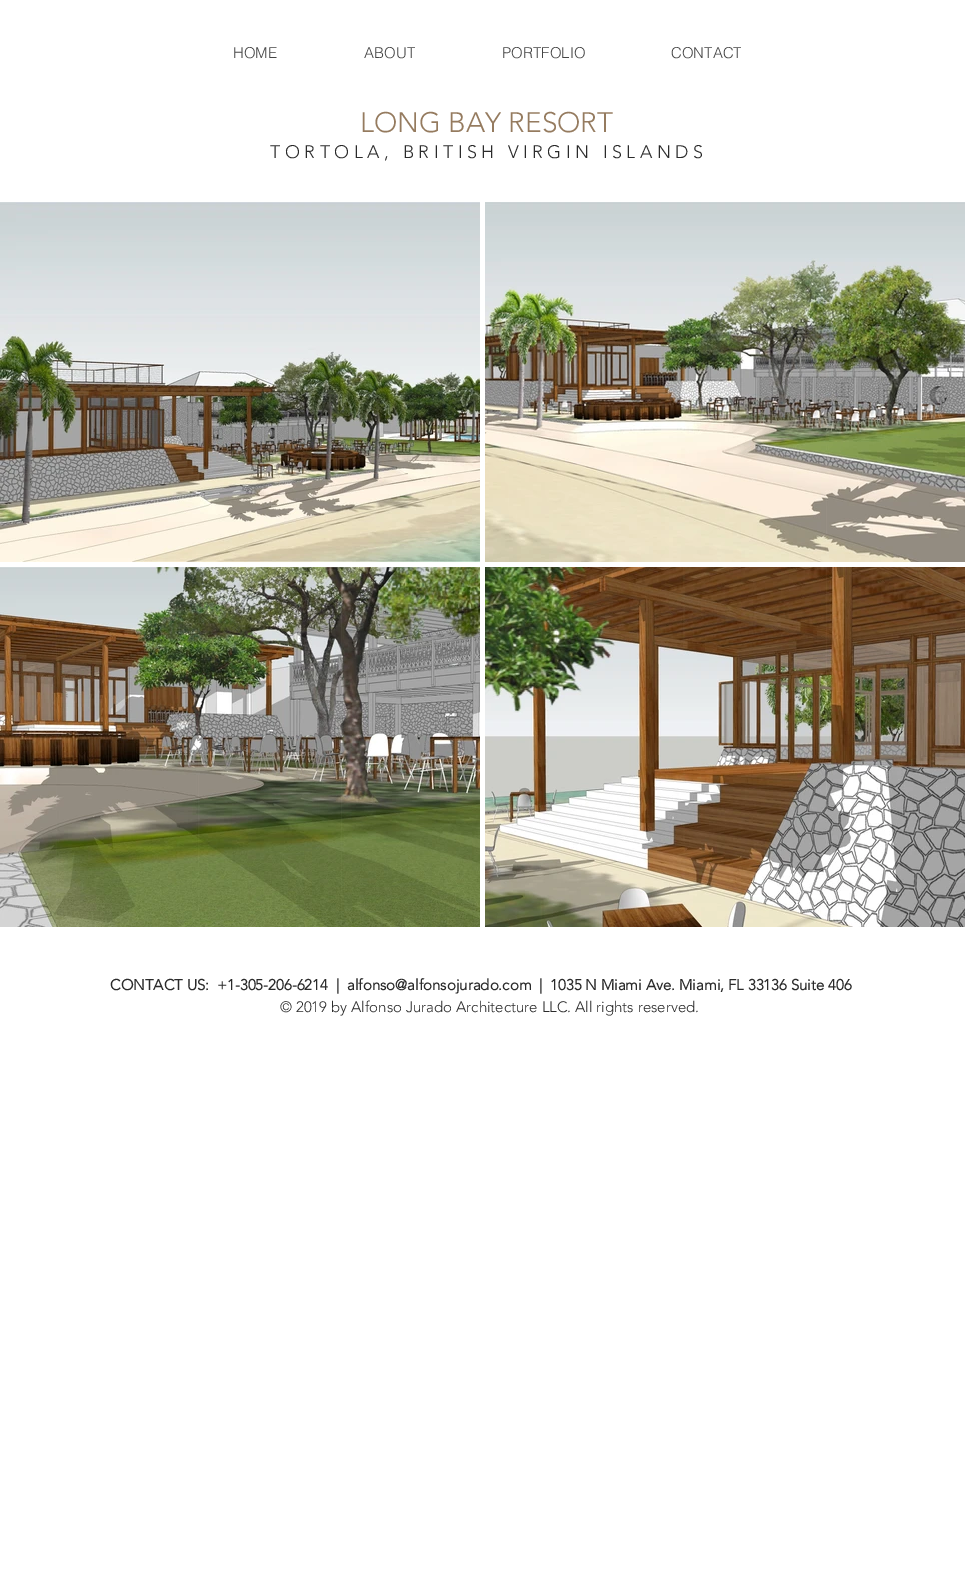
%!PS-Adobe-3.0
%%BoundingBox: 0 0 970 1588
%%LanguageLevel: 3
%%Pages: 1
%%EndComments
%%BeginProlog
/setink { dup -16 bitshift 255 div exch dup -8 bitshift 255 and 255 div exch 255 and 255 div setrgbcolor } def
/usefont { [ exch dup neg 0 0 3 -1 roll 0 0 ] selectfont } def
/drawimage { 5 dict begin { /h /w /y /x /name } { exch def } forall
  gsave x y translate w h scale
  w h 8 [w 0 0 h 0 0] name (r) file false 3 colorimage grestore end } def
%%EndProlog
%%BeginSetup
<< /PageSize [970 1588] >> setpagedevice
%%EndSetup
%%Page: 1 1
0 1588 translate 1 -1 scale
4 setmiterlimit
16#FFFFFF setink
0 0 970 1588 rectfill
/helvetica-Light 15 usefont
16#444444 setink
[
    [(HOME) 233 58]
    [(ABOUT) 364 58]
    [(PORTFOLIO) 502 58]
    [(CONTACT) 671 58]
] { aload pop moveto show } forall
/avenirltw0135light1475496-Light 28 usefont
16#957B5F setink
360 132 moveto (LONG BAY RESORT) show
/avenirltw0135light1475496-Light 18 usefont
16#2B2B2B setink
270 158 moveto 4.5 0 (TORTOLA, BRITISH VIRGIN ISLANDS) ashow
(img1.raw) 0 202 480 360 drawimage
(img2.raw) 485 202 480 360 drawimage
(img3.raw) 0 567 480 360 drawimage
(img4.raw) 485 567 480 360 drawimage
/avenirltw0135light1475496-Bold 15 usefont
[
    [(CONTACT US:  +1-305-206-6214  |) 110 990]
    [(alfonso@alfonsojurado.com) 347 990]
    [(|  1035 N Miami Ave. Miami, FL 33136 Suite 406) 539 990]
] { aload pop moveto show } forall
/avenirltw0135light1475496-Light 15 usefont
280 1012 moveto (© 2019 by Alfonso Jurado Architecture LLC. All rights reserved.) show
showpage
%%EOF
